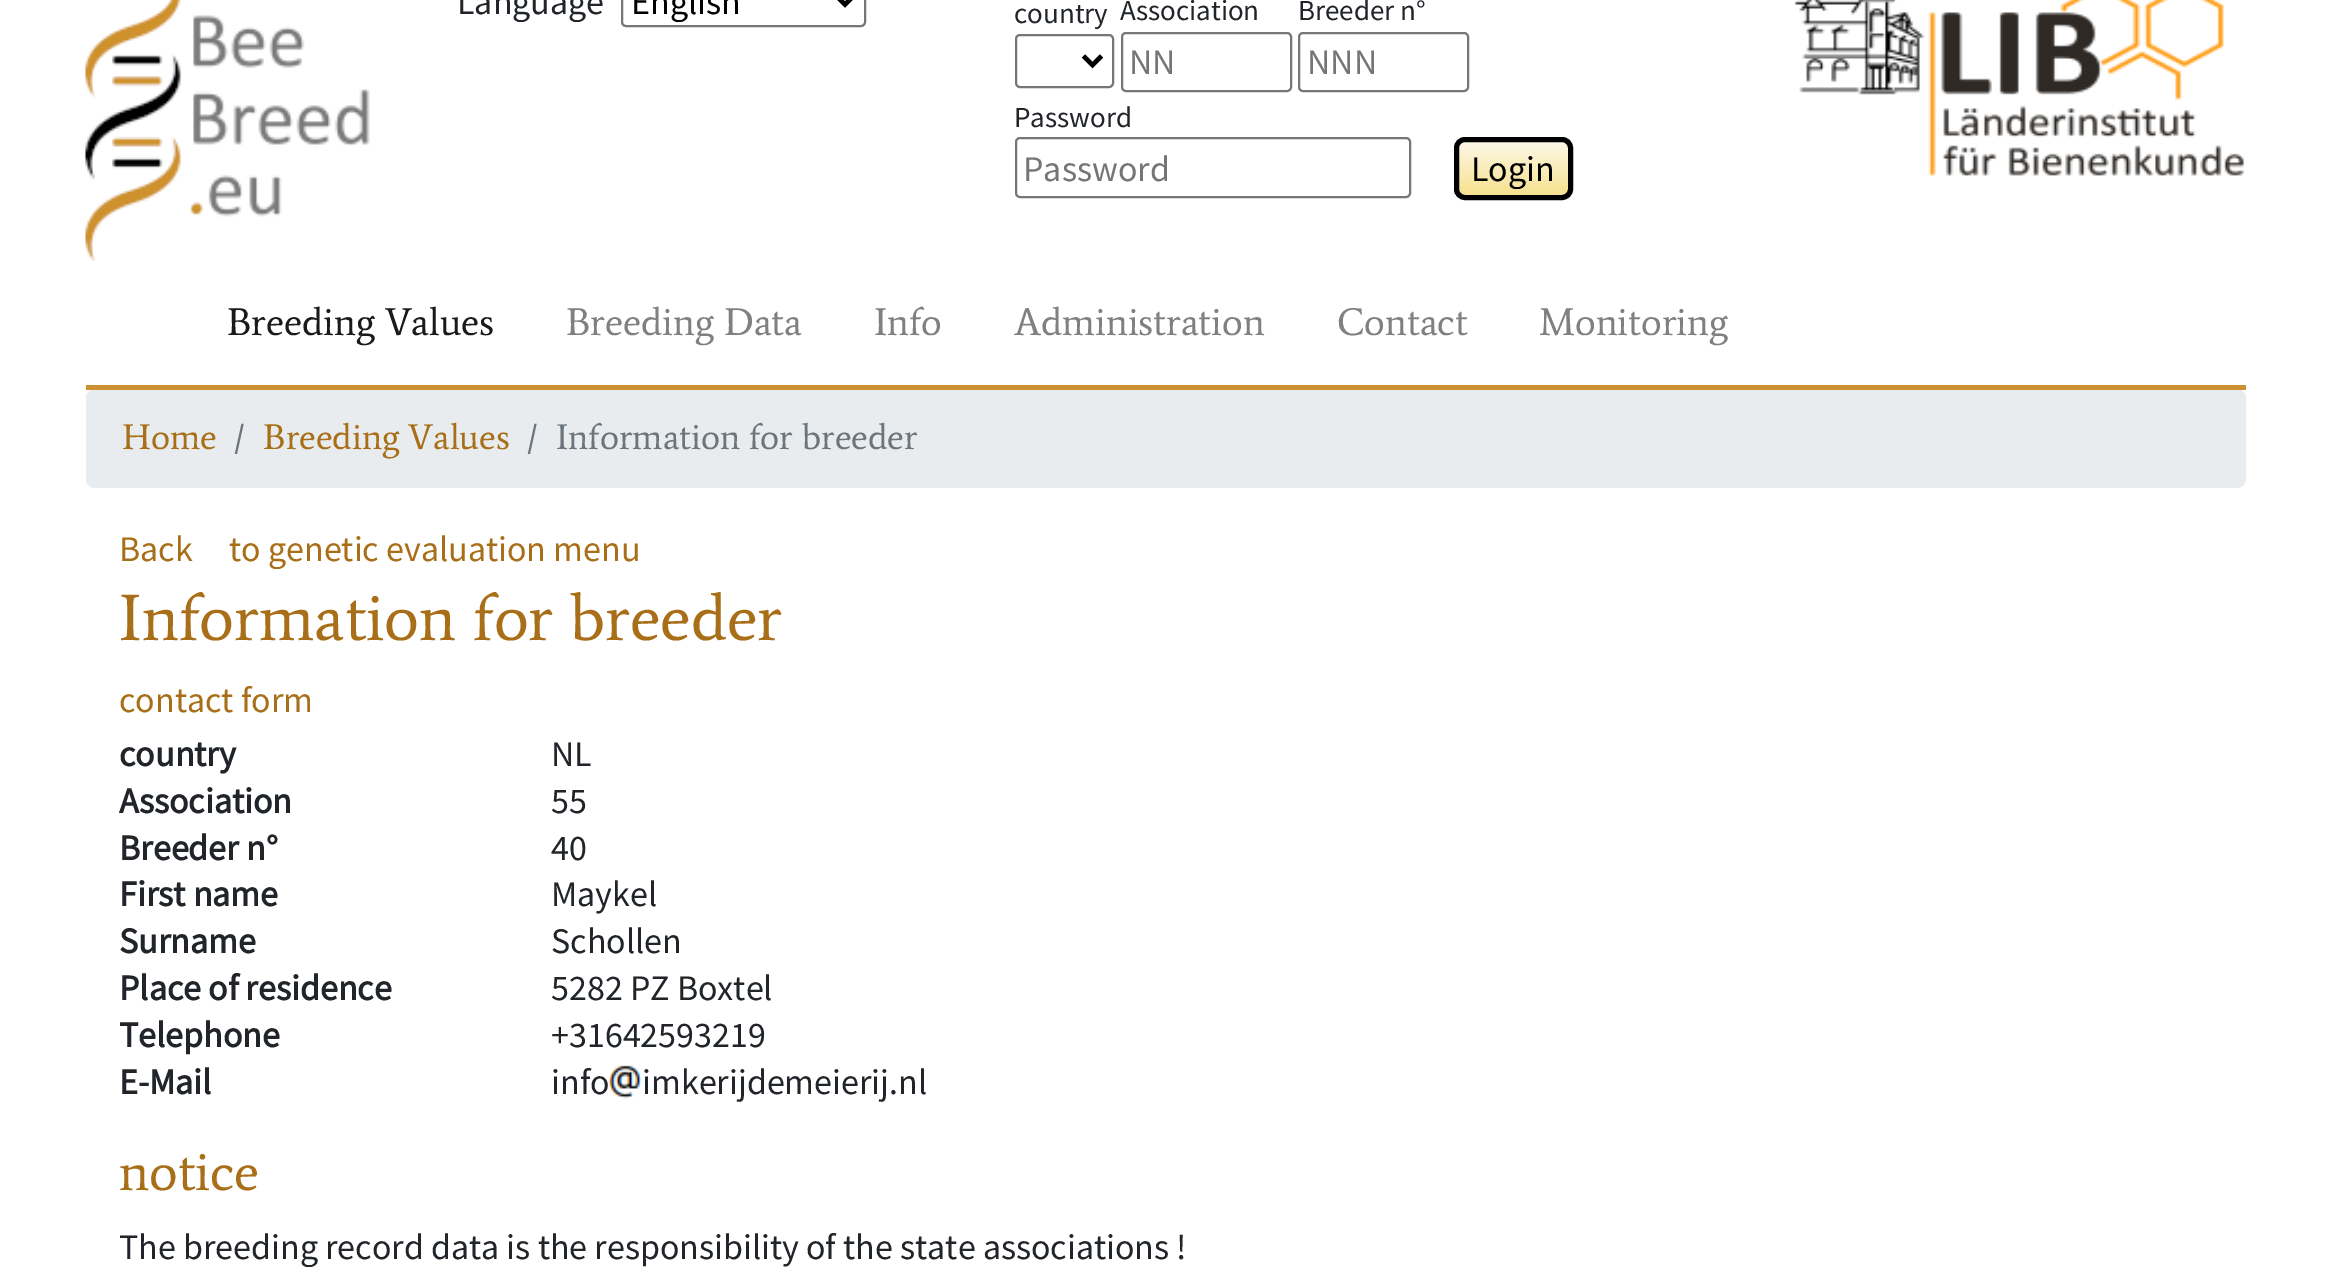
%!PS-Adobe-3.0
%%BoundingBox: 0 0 2330 1279
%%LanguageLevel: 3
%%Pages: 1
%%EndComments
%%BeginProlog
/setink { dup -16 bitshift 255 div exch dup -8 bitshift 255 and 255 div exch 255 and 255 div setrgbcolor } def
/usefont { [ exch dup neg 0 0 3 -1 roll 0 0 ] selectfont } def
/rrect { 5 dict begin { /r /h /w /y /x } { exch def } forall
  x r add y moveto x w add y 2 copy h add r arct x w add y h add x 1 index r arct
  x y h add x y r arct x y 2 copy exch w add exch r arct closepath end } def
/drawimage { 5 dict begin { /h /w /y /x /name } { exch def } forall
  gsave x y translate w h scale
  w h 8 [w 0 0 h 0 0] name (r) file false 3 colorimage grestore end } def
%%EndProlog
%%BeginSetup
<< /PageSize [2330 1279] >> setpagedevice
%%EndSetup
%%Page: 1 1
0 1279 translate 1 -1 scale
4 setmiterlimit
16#FFFFFF setink
0 0 2330 1279 rectfill
(img1.raw) 85 0 285 261 drawimage
/SourceSansPro-Regular 36 usefont
16#212529 setink
457 14 moveto (Language) show
16#767676 setink
2 setlinewidth
622 -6 243 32 4 rrect stroke
16#000000 setink
4.5 setlinewidth
836 -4.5 moveto 845 4.5 lineto 854 -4.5 lineto stroke
631 14 moveto (English) show
/SourceSansPro-Regular 29 usefont
16#212529 setink
1014 23 moveto (country) show
16#767676 setink
2 setlinewidth
1016 35 97 52 4 rrect stroke
16#000000 setink
4.5 setlinewidth
1083.5 56 moveto 1092.5 65 lineto 1101.5 56 lineto stroke
16#212529 setink
1120 20 moveto (Association) show
16#767676 setink
2 setlinewidth
1122 33 169 58 4 rrect stroke
/SourceSansPro-Regular 36 usefont
16#757575 setink
1129 74 moveto (NN) show
/SourceSansPro-Regular 29 usefont
16#212529 setink
1298 20 moveto (Breeder n°) show
16#767676 setink
1299 33 169 58 4 rrect stroke
/SourceSansPro-Regular 36 usefont
16#757575 setink
1307 74 moveto (NNN) show
/SourceSansPro-Regular 29 usefont
16#212529 setink
1014 127 moveto (Password) show
16#767676 setink
1016 138 394 59 4 rrect stroke
/SourceSansPro-Regular 36 usefont
16#757575 setink
1023 181 moveto (Password) show
gsave
1454 137 119 63 11 rrect clip newpath
gsave 1454 142 moveto 1573 142 lineto 1573 196 lineto 1454 196 lineto closepath clip newpath
<< /ShadingType 2 /ColorSpace /DeviceRGB /Coords [1513 142 1513 196] /Extend [true true] /Function << /FunctionType 2 /Domain [0 1] /C0 [0.992 0.973 0.906] /C1 [0.965 0.882 0.553] /N 1 >> >> shfill grestore
grestore
16#000000 setink
5 setlinewidth
1456.5 139.5 114 58 8.5 rrect stroke
1471 181 moveto (Login) show
(img2.raw) 1795 0 450 176 drawimage
16#E9ECEF setink
86 389 2160 99 9 rrect fill
16#CD9133 setink
86 385 2160 5 rectfill
/Average-Regular 39 usefont
16#1A1A1A setink
227 335 moveto (Breeding Values) show
16#808080 setink
[
    [(Breeding Data) 566 335]
    [(Info) 874 335]
    [(Administration) 1014 335]
    [(Contact) 1337 335]
    [(Monitoring) 1539 335]
] { aload pop moveto show } forall
/Average-Regular 36 usefont
16#A96F18 setink
122 449 moveto (Home) show
16#6C757D setink
234 449 moveto (/) show
16#A96F18 setink
263 449 moveto (Breeding Values) show
16#6C757D setink
527 449 moveto (/) show
556 449 moveto (Information for breeder) show
/SourceSansPro-Regular 36 usefont
16#A96F18 setink
119 561 moveto (Back) show
229 561 moveto (to genetic evaluation menu) show
/Average-Regular 66 usefont
119 640 moveto (Information for breeder) show
/SourceSansPro-Regular 36 usefont
119 712 moveto (contact form) show
/SourceSansPro-Bold 36 usefont
16#212529 setink
119 766 moveto (country) show
/SourceSansPro-Regular 36 usefont
551 766 moveto (NL) show
/SourceSansPro-Bold 36 usefont
119 813 moveto (Association) show
/SourceSansPro-Regular 36 usefont
551 813 moveto (55) show
/SourceSansPro-Bold 36 usefont
119 860 moveto (Breeder n°) show
/SourceSansPro-Regular 36 usefont
551 860 moveto (40) show
/SourceSansPro-Bold 36 usefont
119 906 moveto (First name) show
/SourceSansPro-Regular 36 usefont
551 906 moveto (Maykel) show
/SourceSansPro-Bold 36 usefont
119 953 moveto (Surname) show
/SourceSansPro-Regular 36 usefont
551 953 moveto (Schollen) show
/SourceSansPro-Bold 36 usefont
119 1000 moveto (Place of residence) show
/SourceSansPro-Regular 36 usefont
551 1000 moveto (5282 PZ Boxtel) show
/SourceSansPro-Bold 36 usefont
119 1047 moveto (Telephone) show
/SourceSansPro-Regular 36 usefont
551 1047 moveto (+31642593219) show
/SourceSansPro-Bold 36 usefont
119 1094 moveto (E-Mail) show
/SourceSansPro-Regular 36 usefont
551 1094 moveto (info) show
(img3.raw) 609 1065 33 34 drawimage
642 1094 moveto (imkerijdemeierij.nl) show
/Average-Regular 54 usefont
16#A96F18 setink
119 1190 moveto (notice) show
/SourceSansPro-Regular 36 usefont
16#212529 setink
119 1259 moveto (The breeding record data is the responsibility of the state associations !) show
showpage
%%EOF
